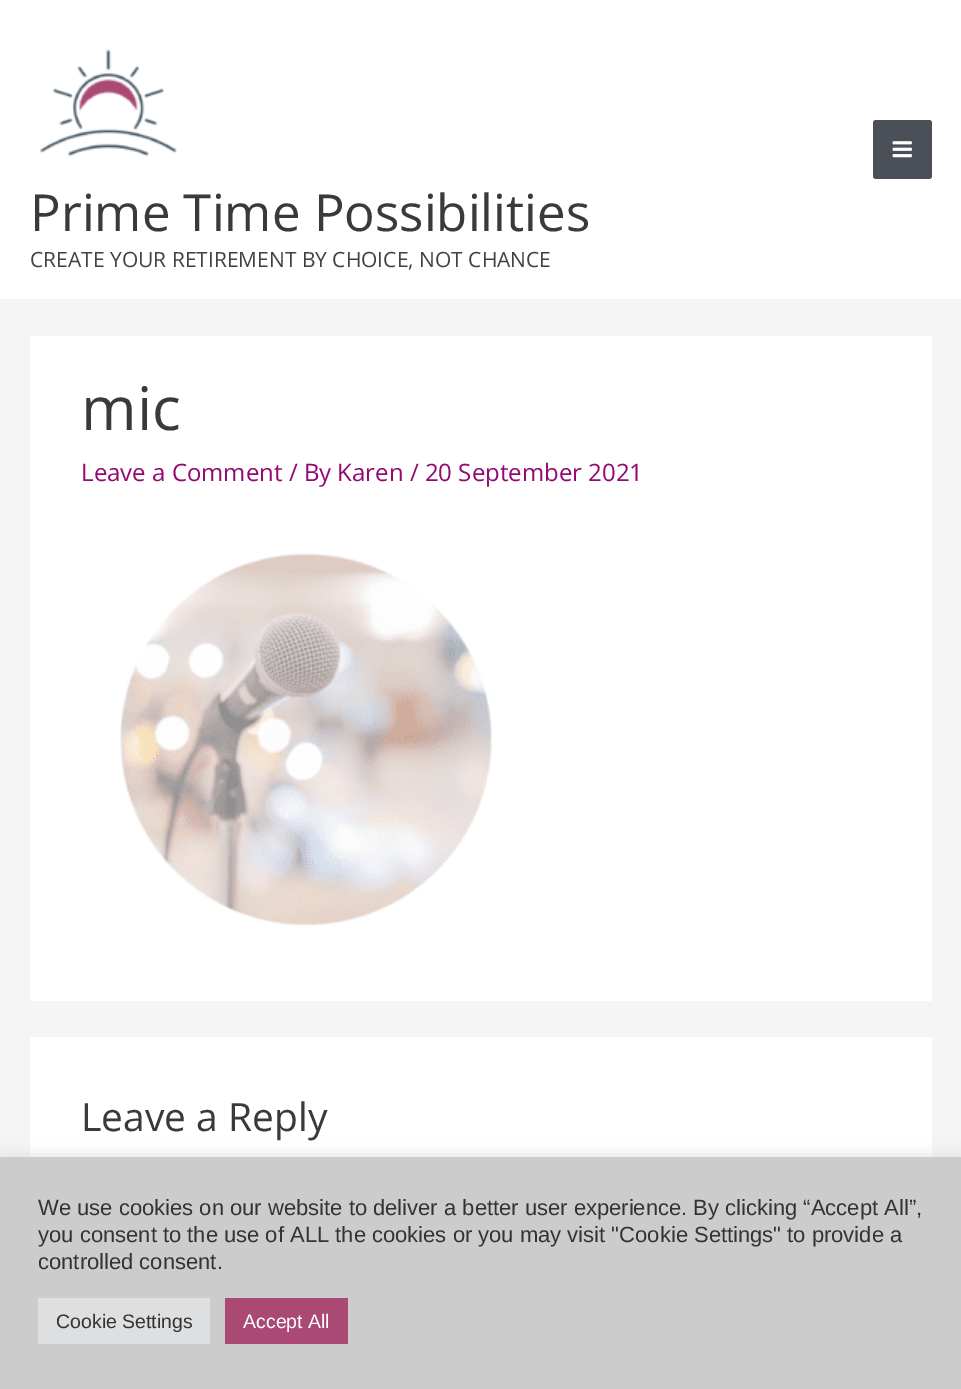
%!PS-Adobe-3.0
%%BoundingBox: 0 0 961 1389
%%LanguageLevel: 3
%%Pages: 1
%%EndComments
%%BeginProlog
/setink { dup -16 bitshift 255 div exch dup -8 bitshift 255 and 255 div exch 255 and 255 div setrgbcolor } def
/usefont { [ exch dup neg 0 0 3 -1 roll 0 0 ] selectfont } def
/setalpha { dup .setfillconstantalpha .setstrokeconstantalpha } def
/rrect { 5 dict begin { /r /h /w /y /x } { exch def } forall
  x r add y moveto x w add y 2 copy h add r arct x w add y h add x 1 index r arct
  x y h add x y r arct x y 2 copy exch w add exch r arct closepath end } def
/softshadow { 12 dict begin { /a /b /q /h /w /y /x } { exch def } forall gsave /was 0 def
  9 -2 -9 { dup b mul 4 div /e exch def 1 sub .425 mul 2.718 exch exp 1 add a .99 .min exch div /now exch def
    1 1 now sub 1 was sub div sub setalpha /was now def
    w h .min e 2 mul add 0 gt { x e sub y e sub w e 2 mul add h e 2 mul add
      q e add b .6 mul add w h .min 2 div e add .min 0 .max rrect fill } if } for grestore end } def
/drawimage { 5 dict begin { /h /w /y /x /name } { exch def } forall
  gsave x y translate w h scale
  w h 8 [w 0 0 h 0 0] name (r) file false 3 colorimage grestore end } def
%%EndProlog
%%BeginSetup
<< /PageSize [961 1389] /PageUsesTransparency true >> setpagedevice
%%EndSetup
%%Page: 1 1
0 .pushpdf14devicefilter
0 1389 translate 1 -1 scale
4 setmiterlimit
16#F5F5F5 setink
0 0 961 1389 rectfill
16#FFFFFF setink
0 0 961 299 rectfill
16#F2F5F7 setink
0 299 961 2 rectfill
16#4B4F58 setink
873 120 59 59 3 rrect fill
(img1.raw) 892 141 20 17 drawimage
(img2.raw) 40 49 138 108 drawimage
/OpenSans-Regular 51 usefont
16#3A3A3A setink
30 231 moveto (Prime Time Possibilities) show
/OpenSans-Regular 21 usefont
16#424242 setink
30 267 moveto (CREATE YOUR RETIREMENT BY CHOICE, NOT CHANCE) show
16#FFFFFF setink
30 336 902 665 rectfill
/OpenSans-Regular 60 usefont
16#3A3A3A setink
81 430 moveto (mic) show
/OpenSans-Regular 24 usefont
16#910971 setink
81 481 moveto (Leave a Comment / By Karen / 20 September 2021) show
(img3.raw) 120 553 373 373 drawimage
16#FFFFFF setink
30 1037 902 120 rectfill
/OpenSans-Regular 39 usefont
16#3A3A3A setink
81 1131 moveto (Leave a Reply) show
16#ACABAB setink
0 1155 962 233 0 7.5 0.3 softshadow
16#CCCCCC setink
0 1157 961 232 rectfill
/LiberationSans-Regular 22 usefont
16#333333 setink
[
    [(We use cookies on our website to deliver a better user experience. By clicking “Accept All”,) 38 1215]
    [(you consent to the use of ALL the cookies or you may visit "Cookie Settings" to provide a) 38 1242]
    [(controlled consent.) 38 1269]
] { aload pop moveto show } forall
16#DEDFE0 setink
38 1298 172 46 rectfill
/LiberationSans-Regular 19.5 usefont
16#333333 setink
56 1328 moveto (Cookie Settings) show
16#AA4A74 setink
225 1298 123 46 rectfill
16#FFFFFF setink
243 1328 moveto (Accept All) show
.poppdf14devicefilter showpage
%%EOF
